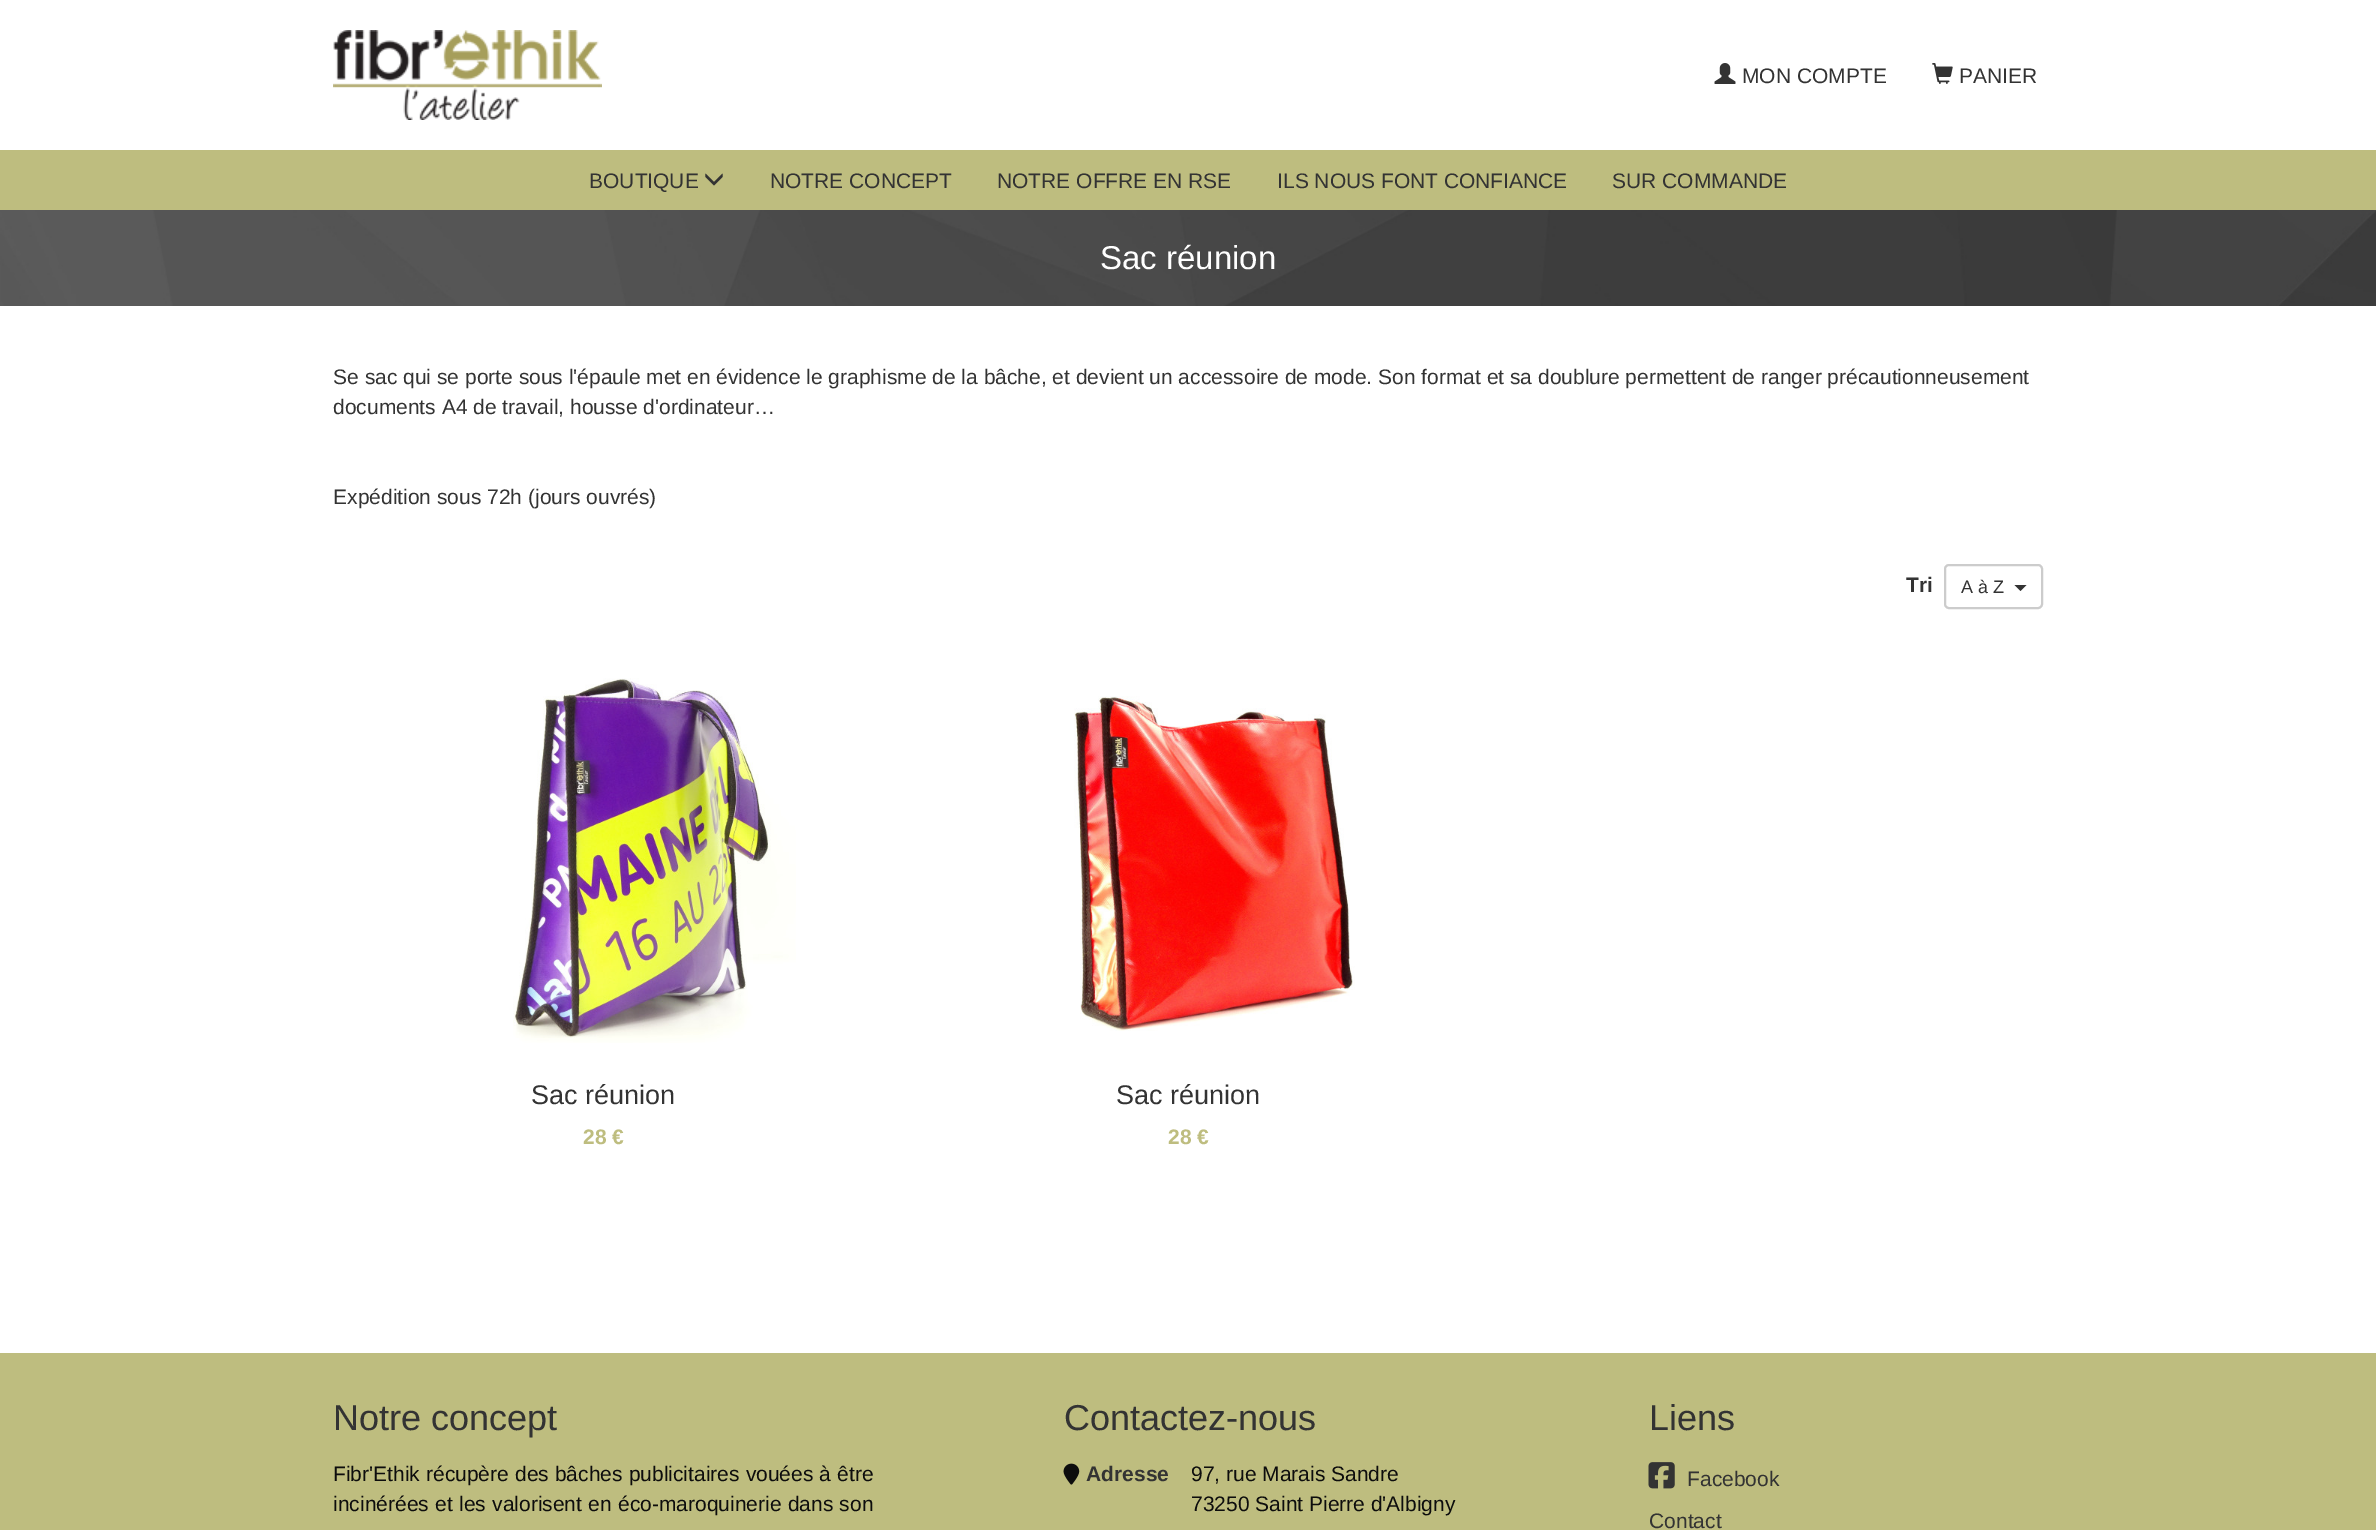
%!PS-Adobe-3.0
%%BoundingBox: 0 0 2376 1530
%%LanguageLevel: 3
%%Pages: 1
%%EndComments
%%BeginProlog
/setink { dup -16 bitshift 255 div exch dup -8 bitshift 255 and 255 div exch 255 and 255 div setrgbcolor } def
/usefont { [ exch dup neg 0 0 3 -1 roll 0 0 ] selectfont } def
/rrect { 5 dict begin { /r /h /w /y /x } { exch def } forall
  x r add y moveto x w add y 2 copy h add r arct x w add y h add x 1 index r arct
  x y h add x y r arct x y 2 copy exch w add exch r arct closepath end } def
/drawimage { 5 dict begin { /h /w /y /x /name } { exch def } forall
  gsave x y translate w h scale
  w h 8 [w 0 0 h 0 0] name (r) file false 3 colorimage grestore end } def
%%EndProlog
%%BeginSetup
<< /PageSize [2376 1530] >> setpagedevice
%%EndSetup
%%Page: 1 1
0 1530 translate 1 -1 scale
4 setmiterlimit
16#FFFFFF setink
0 0 2376 1530 rectfill
(img1.raw) 333 30 269 90 drawimage
(img2.raw) 1714 63 22 21 drawimage
/LiberationSans-Regular 21 usefont
16#333333 setink
1742 83 moveto (MON COMPTE) show
(img3.raw) 1932 63 21 21 drawimage
1959 83 moveto (PANIER) show
16#BEBD7F setink
0 150 2376 60 rectfill
16#333333 setink
589 188 moveto (BOUTIQUE) show
(img4.raw) 705 173 18 13 drawimage
[
    [(NOTRE CONCEPT) 770 188]
    [(NOTRE OFFRE EN RSE) 997 188]
    [(ILS NOUS FONT CONFIANCE) 1277 188]
    [(SUR COMMANDE) 1612 188]
] { aload pop moveto show } forall
(img5.raw) 0 210 2376 96 drawimage
/LiberationSans-Regular 33 usefont
16#FFFFFF setink
1100 269 moveto (Sac réunion) show
/LiberationSans-Regular 21 usefont
16#333333 setink
[
    [(Se sac qui se porte sous l'épaule met en évidence le graphisme de la bâche, et devient un accessoire de mode. Son format et sa doublure permettent de ranger précautionneusement) 333 384]
    [(documents A4 de travail, housse d'ordinateur…) 333 414]
    [(Expédition sous 72h \(jours ouvrés\)) 333 504]
] { aload pop moveto show } forall
/LiberationSans-Bold 21 usefont
1906 592 moveto (Tri) show
16#CCCCCC setink
2 setlinewidth
1945 565 97 43 4 rrect stroke
/LiberationSans-Regular 18 usefont
16#333333 setink
1961 593 moveto (A à Z) show
2014.5 585 moveto 2026.5 585 lineto 2020.5 591 lineto closepath fill
(img6.raw) 513 678 283 365 drawimage
/LiberationSans-Regular 27 usefont
531 1104 moveto (Sac réunion) show
/LiberationSans-Bold 21 usefont
16#BEBD7F setink
583 1144 moveto (28 €) show
(img7.raw) 1074 696 281 335 drawimage
/LiberationSans-Regular 27 usefont
16#333333 setink
1116 1104 moveto (Sac réunion) show
/LiberationSans-Bold 21 usefont
16#BEBD7F setink
1168 1144 moveto (28 €) show
0 1353 2376 177 rectfill
/LiberationSans-Regular 36 usefont
16#333333 setink
333 1430 moveto (Notre concept) show
/LiberationSans-Regular 21 usefont
16#0D0D0D setink
333 1481 moveto 0.25 0 32 (Fibr'Ethik récupère des bâches publicitaires vouées à être) widthshow
333 1511 moveto 0.5 0 32 (incinérées et les valorisent en éco-maroquinerie dans son) widthshow
/LiberationSans-Regular 36 usefont
16#333333 setink
1064 1430 moveto (Contactez-nous) show
(img8.raw) 1063 1463 17 22 drawimage
/LiberationSans-Bold 21 usefont
1086 1481 moveto (Adresse) show
/LiberationSans-Regular 21 usefont
16#0D0D0D setink
1191 1481 moveto (97, rue Marais Sandre) show
1191 1511 moveto (73250 Saint Pierre d'Albigny) show
/LiberationSans-Regular 36 usefont
16#333333 setink
1649 1430 moveto (Liens) show
(img9.raw) 1648 1462 27 27 drawimage
/LiberationSans-Regular 21 usefont
1687 1486 moveto (Facebook) show
1649 1528 moveto (Contact) show
showpage
%%EOF
